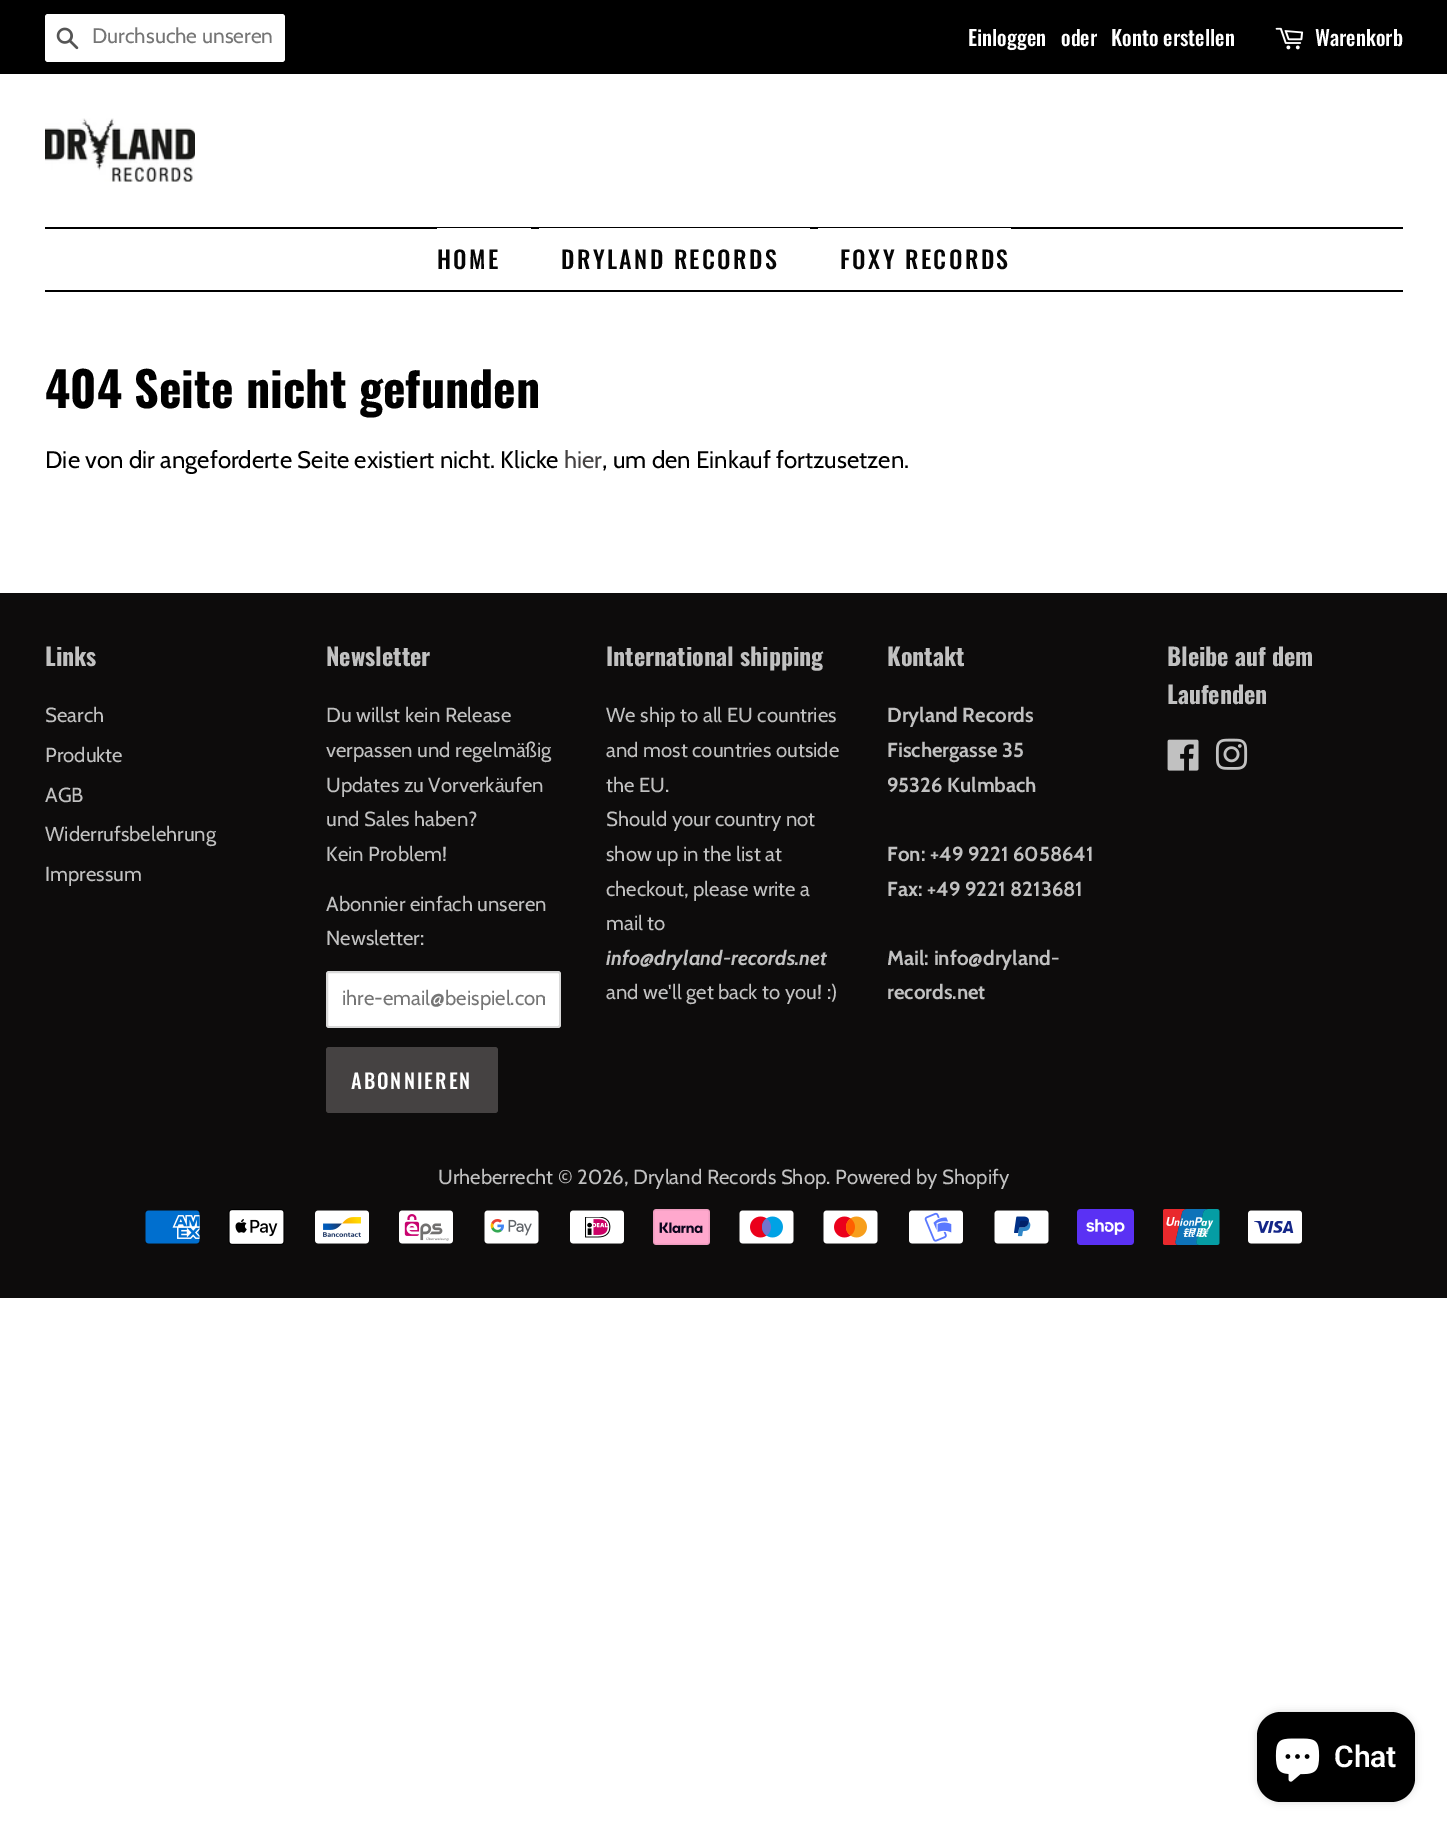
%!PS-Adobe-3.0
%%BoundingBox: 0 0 1447 1832
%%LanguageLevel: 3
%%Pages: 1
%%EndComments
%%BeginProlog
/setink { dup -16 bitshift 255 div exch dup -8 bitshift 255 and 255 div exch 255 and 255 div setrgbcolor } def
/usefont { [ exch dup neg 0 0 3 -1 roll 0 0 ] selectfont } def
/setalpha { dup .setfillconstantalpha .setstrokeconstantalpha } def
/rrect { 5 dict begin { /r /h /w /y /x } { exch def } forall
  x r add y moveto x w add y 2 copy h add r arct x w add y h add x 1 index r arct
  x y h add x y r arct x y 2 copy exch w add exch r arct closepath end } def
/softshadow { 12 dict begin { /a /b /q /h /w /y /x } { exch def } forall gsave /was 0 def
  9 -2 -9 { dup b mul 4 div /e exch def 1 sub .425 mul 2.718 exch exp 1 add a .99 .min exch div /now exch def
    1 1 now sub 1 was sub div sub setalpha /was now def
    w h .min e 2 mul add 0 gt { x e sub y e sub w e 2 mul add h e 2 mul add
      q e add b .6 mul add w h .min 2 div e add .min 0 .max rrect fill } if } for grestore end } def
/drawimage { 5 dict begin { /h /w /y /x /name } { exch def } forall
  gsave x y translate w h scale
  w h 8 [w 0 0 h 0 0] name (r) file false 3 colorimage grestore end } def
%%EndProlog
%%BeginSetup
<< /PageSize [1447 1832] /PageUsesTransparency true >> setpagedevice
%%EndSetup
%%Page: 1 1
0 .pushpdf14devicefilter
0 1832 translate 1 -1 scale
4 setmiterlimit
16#FFFFFF setink
0 0 1447 1832 rectfill
16#000000 setink
0 0 1447 74 rectfill
16#FFFFFF setink
45 14 240 48 3 rrect fill
(img1.raw) 56 27 23 23 drawimage
/Cabin-Regular 21 usefont
16#757575 setink
92 43 moveto (Durchsuche unseren) show
/Oswald-Medium 21 usefont
16#FFFFFF setink
[
    [(Einloggen) 968 46]
    [(oder) 1061 46]
    [(Konto erstellen) 1111 46]
] { aload pop moveto show } forall
(img2.raw) 1275 27 29 23 drawimage
1315 46 moveto (Warenkorb) show
(img3.raw) 45 118 150 64 drawimage
[
    [45 227 1358 2 16#000000]
    [45 290 1358 2 16#000000]
    [437 228 94 1 16#FFFFFF]
] { aload pop setink rectfill } forall
/Oswald-Medium 24 usefont
16#060606 setink
437 269 moveto 2.4 0 (HOME) ashow
16#FFFFFF setink
539 228 271 1 rectfill
16#060606 setink
561 269 moveto 2.4 0 (DRYLAND RECORDS) ashow
16#FFFFFF setink
818 228 193 1 rectfill
16#060606 setink
840 269 moveto 2.4 0 (FOXY RECORDS) ashow
/Oswald-Bold 48 usefont
16#000000 setink
45 408 moveto (404 Seite nicht gefunden) show
/Cabin-Regular 24 usefont
45 468 moveto (Die von dir angeforderte Seite existiert nicht. Klicke) show
16#454242 setink
564 468 moveto (hier) show
16#000000 setink
602 468 moveto (, um den Einkauf fortzusetzen.) show
16#0D0C0C setink
0 593 1447 705 rectfill
/Oswald-Bold 24 usefont
16#C1C1C1 setink
45 666 moveto (Links) show
/Cabin-Regular 20.4 usefont
[
    [(Search) 45 722]
    [(Produkte) 45 762]
    [(AGB) 45 802]
    [(Widerrufsbelehrung) 45 841]
    [(Impressum) 45 881]
] { aload pop moveto show } forall
/Oswald-Bold 24 usefont
326 666 moveto (Newsletter) show
/Cabin-Regular 20.4 usefont
[
    [(Du willst kein Release) 326 722]
    [(verpassen und regelmäßig) 326 757]
    [(Updates zu Vorverkäufen) 326 792]
    [(und Sales haben?) 326 826]
    [(Kein Problem!) 326 861]
    [(Abonnier einfach unseren) 326 911]
    [(Newsletter:) 326 945]
] { aload pop moveto show } forall
16#FFFFFF setink
326 971 235 57 3 rrect fill
0.15 setalpha
16#000000 setink
2 setlinewidth
327 972 233 55 2 rrect stroke
gsave
342 986 203 24 rectclip
1 setalpha
16#757575 setink
342 1005 moveto (ihre-email@beispiel.com) show
grestore
1 setalpha
16#454242 setink
326 1047 172 66 3 rrect fill
/Oswald-Medium 20.4 usefont
16#FFFFFF setink
351 1089 moveto 2 0 (ABONNIEREN) ashow
/Oswald-Bold 24 usefont
16#C1C1C1 setink
606 666 moveto (International shipping) show
/Cabin-Regular 20.4 usefont
[
    [(We ship to all EU countries) 606 722]
    [(and most countries outside) 606 757]
    [(the EU.) 606 792]
    [(Should your country not) 606 826]
    [(show up in the list at) 606 861]
    [(checkout, please write a) 606 896]
    [(mail to) 606 930]
] { aload pop moveto show } forall
/Cabin-BoldItalic 20.4 usefont
606 965 moveto (info@dryland-records.net) show
/Cabin-Regular 20.4 usefont
606 999 moveto (and we'll get back to you! :\)) show
/Oswald-Bold 24 usefont
887 666 moveto (Kontakt) show
/Cabin-Bold 20.4 usefont
[
    [(Dryland Records) 887 722]
    [(Fischergasse 35) 887 757]
    [(95326 Kulmbach) 887 792]
    [(Fon: +49 9221 6058641) 887 861]
    [(Fax: +49 9221 8213681) 887 896]
    [(Mail: info@dryland-) 887 965]
    [(records.net) 887 999]
] { aload pop moveto show } forall
/Oswald-Bold 24 usefont
1167 666 moveto (Bleibe auf dem) show
1167 704 moveto (Laufenden) show
(img4.raw) 1167 739 32 32 drawimage
(img5.raw) 1215 738 33 32 drawimage
/Cabin-Regular 20.4 usefont
438 1184 moveto (Urheberrecht © 2026, Dryland Records Shop. Powered by Shopify) show
(img6.raw) 145 1210 55 34 drawimage
(img7.raw) 228 1209 57 36 drawimage
(img8.raw) 315 1210 54 34 drawimage
(img9.raw) 399 1210 54 34 drawimage
(img10.raw) 484 1210 55 34 drawimage
(img11.raw) 570 1210 54 34 drawimage
(img12.raw) 653 1209 57 36 drawimage
(img13.raw) 739 1210 55 34 drawimage
(img14.raw) 823 1210 55 34 drawimage
(img15.raw) 909 1210 54 34 drawimage
(img16.raw) 994 1210 55 34 drawimage
(img17.raw) 1077 1209 57 36 drawimage
(img18.raw) 1163 1209 57 36 drawimage
(img19.raw) 1248 1210 54 34 drawimage
16#000000 setink
1257 1712 158 90 24 4 0.15 softshadow
1257 1712 158 90 24 rrect fill
(img20.raw) 1275 1738 45 44 drawimage
/Roboto-SemiBold 30 usefont
16#FFFFFF setink
1334 1767 moveto (Chat) show
.poppdf14devicefilter showpage
%%EOF
